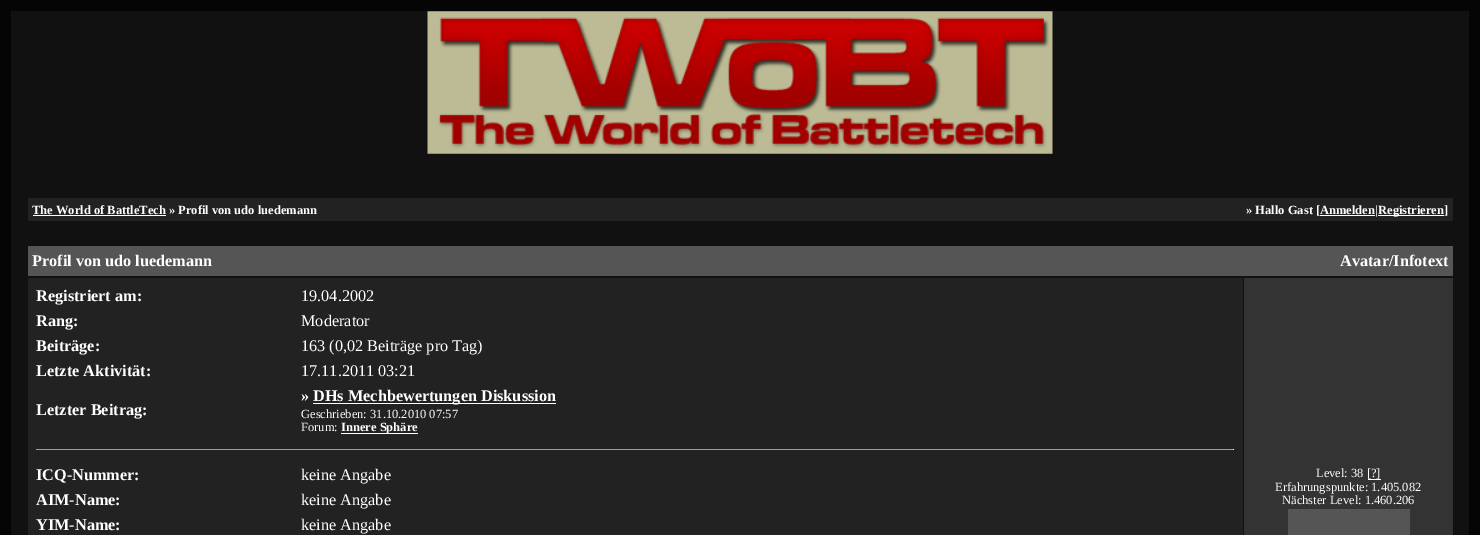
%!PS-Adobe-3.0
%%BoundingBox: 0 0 1480 535
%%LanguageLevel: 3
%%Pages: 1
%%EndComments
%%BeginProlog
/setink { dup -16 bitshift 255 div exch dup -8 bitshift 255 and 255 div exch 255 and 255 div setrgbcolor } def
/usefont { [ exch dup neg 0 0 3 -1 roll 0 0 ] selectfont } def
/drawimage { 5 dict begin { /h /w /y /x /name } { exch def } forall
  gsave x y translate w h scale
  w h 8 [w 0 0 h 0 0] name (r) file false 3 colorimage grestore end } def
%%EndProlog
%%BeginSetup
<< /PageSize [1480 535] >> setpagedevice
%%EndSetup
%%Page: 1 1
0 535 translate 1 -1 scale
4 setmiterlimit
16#050505 setink
0 0 1480 535 rectfill
16#111111 setink
11 11 1458 524 rectfill
(img1.raw) 427 11 626 143 drawimage
16#222222 setink
28 198 1425 23 rectfill
/LiberationSerif-Bold 12.5 usefont
16#FFFFFF setink
32 214 moveto (The World of BattleTech » Profil von udo luedemann) show
33 215 133 1 rectfill
1246 214 moveto (» Hallo Gast [Anmelden|) show
1320 215 55 1 rectfill
1378 215 66 1 rectfill
1378 214 moveto (Registrieren]) show
16#555555 setink
28 246 1425 30 rectfill
/LiberationSerif-Bold 16.25 usefont
16#FFFFFF setink
32 266 moveto (Profil von udo luedemann) show
1340 266 moveto (Avatar/Infotext) show
16#222222 setink
28 278 1215 257 rectfill
16#FFFFFF setink
36 301 moveto (Registriert am:) show
/LiberationSerif-Regular 16.25 usefont
301 301 moveto (19.04.2002) show
/LiberationSerif-Bold 16.25 usefont
36 326 moveto (Rang:) show
/LiberationSerif-Regular 16.25 usefont
301 326 moveto (Moderator) show
/LiberationSerif-Bold 16.25 usefont
36 351 moveto (Beiträge:) show
/LiberationSerif-Regular 16.25 usefont
301 351 moveto (163 \(0,02 Beiträge pro Tag\)) show
/LiberationSerif-Bold 16.25 usefont
36 376 moveto (Letzte Aktivität:) show
/LiberationSerif-Regular 16.25 usefont
301 376 moveto (17.11.2011 03:21) show
/LiberationSerif-Bold 16.25 usefont
36 415 moveto (Letzter Beitrag:) show
301 401 moveto (») show
313 403 243 1 rectfill
313 401 moveto (DHs Mechbewertungen Diskussion) show
/LiberationSerif-Regular 12.5 usefont
301 418 moveto (Geschrieben: 31.10.2010 07:57) show
301 431 moveto (Forum:) show
341 433 77 1 rectfill
/LiberationSerif-Bold 12.5 usefont
341 431 moveto (Innere Sphäre) show
16#9F9F9F setink
36 449 1198 1 rectfill
16#EEEEEE setink
1233 449 1 1 rectfill
/LiberationSerif-Bold 16.25 usefont
16#FFFFFF setink
36 480 moveto (ICQ-Nummer:) show
/LiberationSerif-Regular 16.25 usefont
301 480 moveto (keine Angabe) show
/LiberationSerif-Bold 16.25 usefont
36 505 moveto (AIM-Name:) show
/LiberationSerif-Regular 16.25 usefont
301 505 moveto (keine Angabe) show
/LiberationSerif-Bold 16.25 usefont
36 530 moveto (YIM-Name:) show
/LiberationSerif-Regular 16.25 usefont
301 530 moveto (keine Angabe) show
16#333333 setink
1244 278 209 257 rectfill
/LiberationSerif-Regular 12.5 usefont
16#FFFFFF setink
1316 477 moveto (Level: 38 [?]) show
1368 479 13 1 rectfill
1275 491 moveto (Erfahrungspunkte: 1.405.082) show
1282 504 moveto (Nächster Level: 1.460.206) show
16#555555 setink
1288 509 122 26 rectfill
showpage
%%EOF
